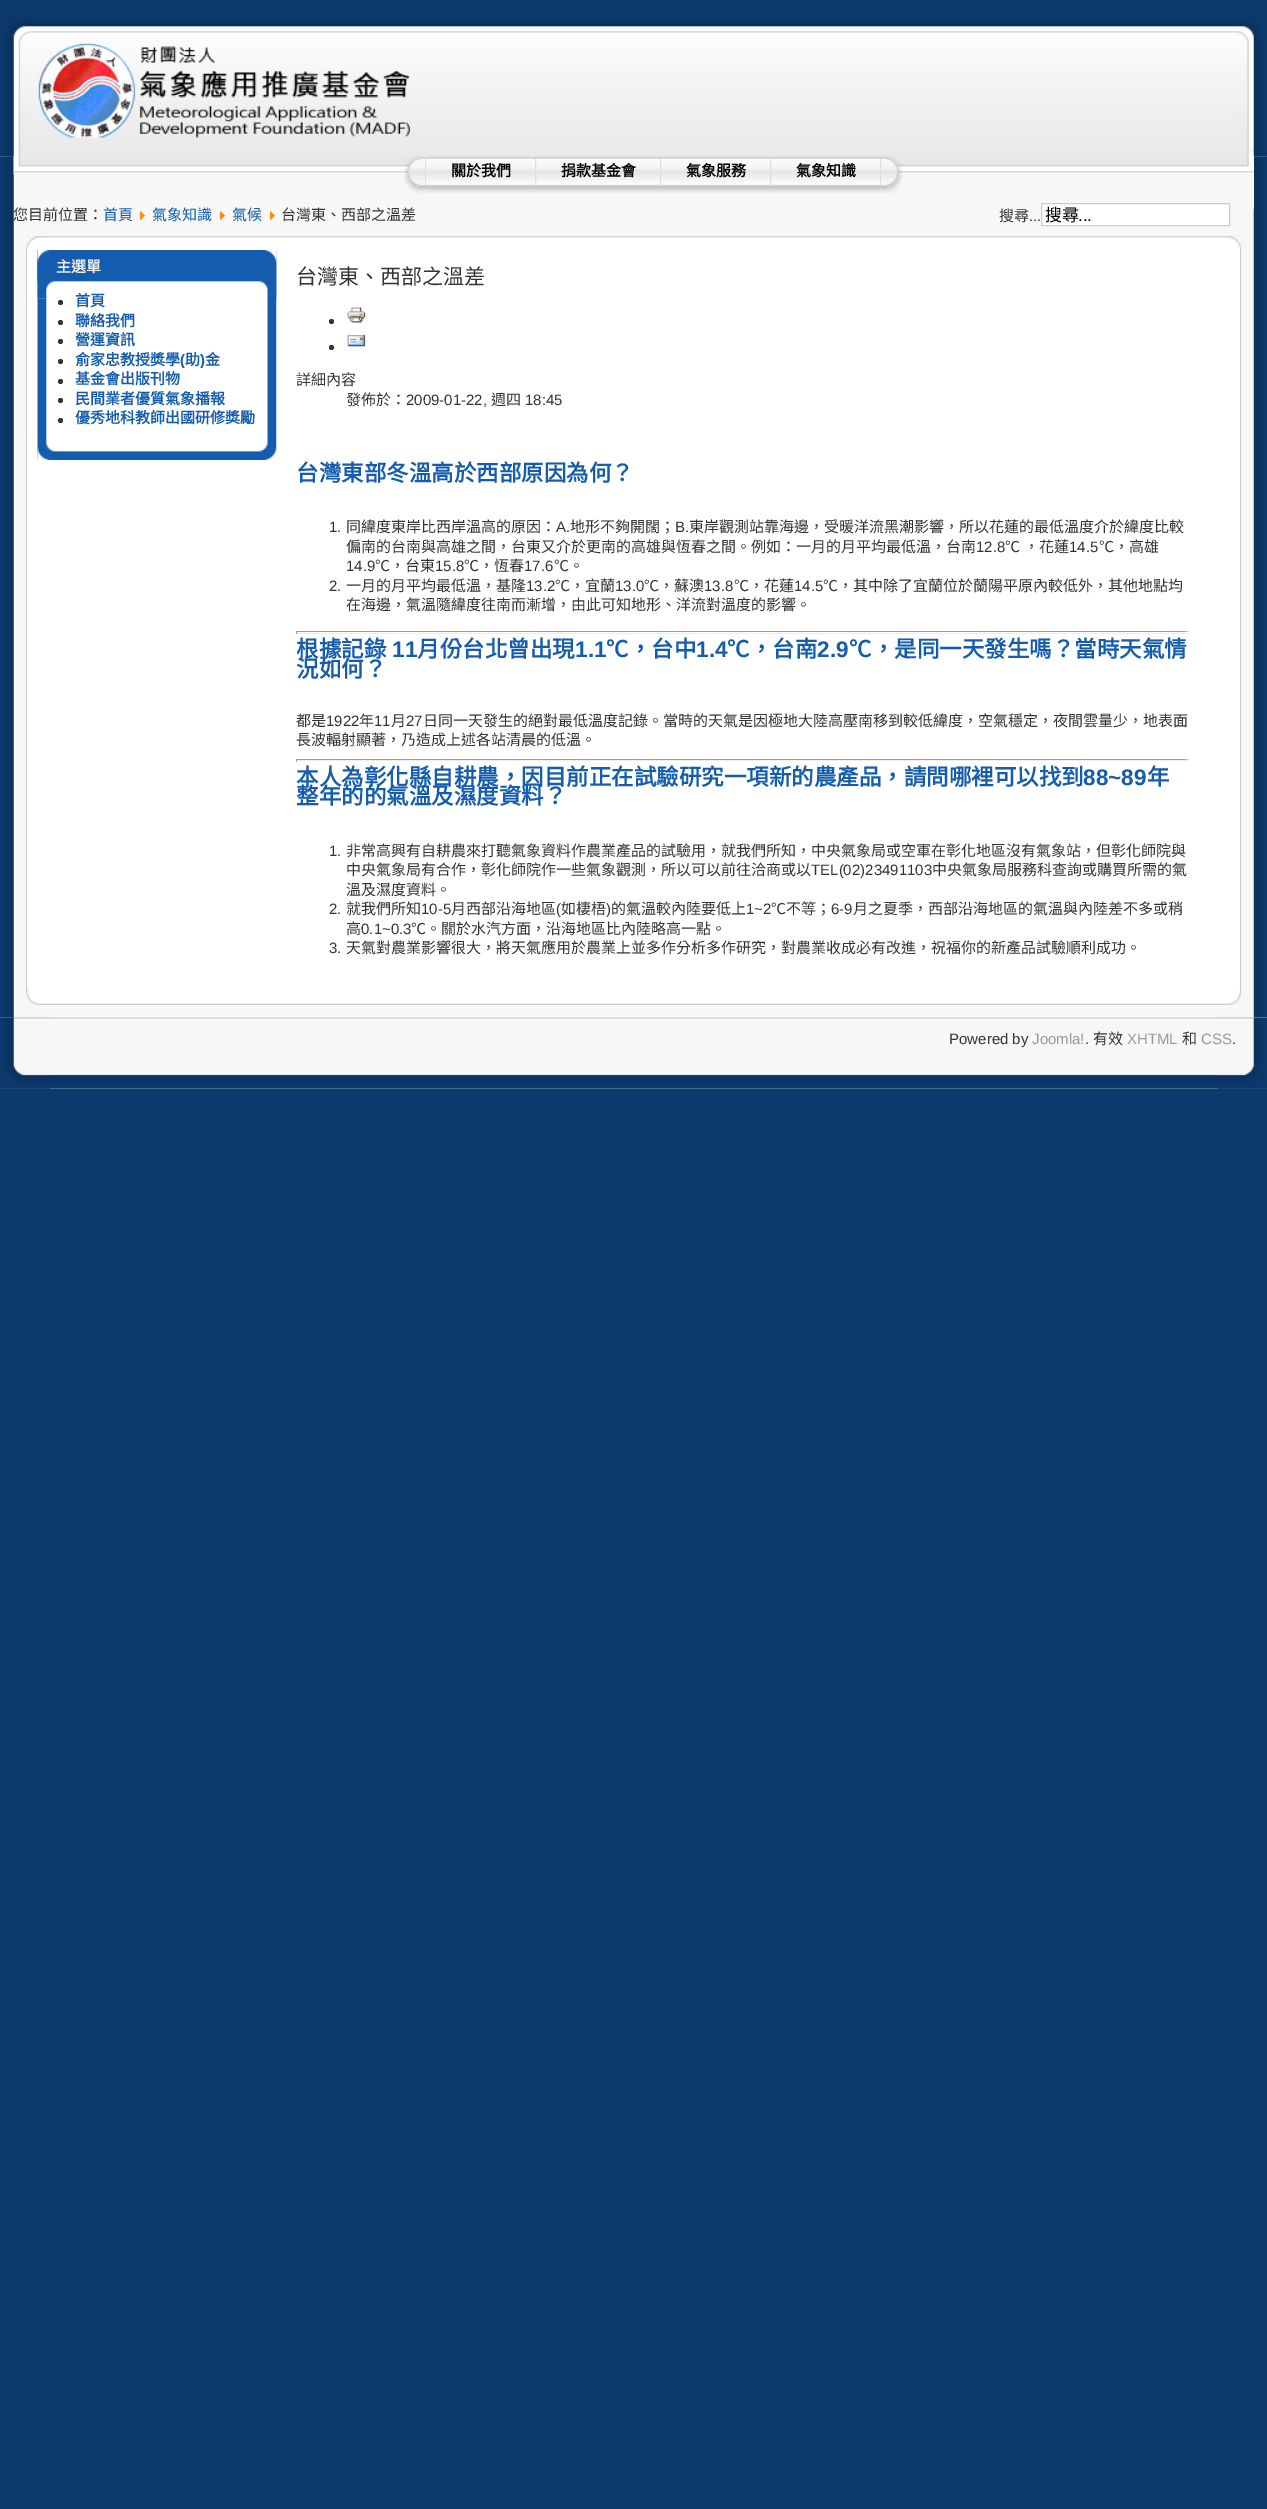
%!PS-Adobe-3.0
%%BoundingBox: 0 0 1267 2509
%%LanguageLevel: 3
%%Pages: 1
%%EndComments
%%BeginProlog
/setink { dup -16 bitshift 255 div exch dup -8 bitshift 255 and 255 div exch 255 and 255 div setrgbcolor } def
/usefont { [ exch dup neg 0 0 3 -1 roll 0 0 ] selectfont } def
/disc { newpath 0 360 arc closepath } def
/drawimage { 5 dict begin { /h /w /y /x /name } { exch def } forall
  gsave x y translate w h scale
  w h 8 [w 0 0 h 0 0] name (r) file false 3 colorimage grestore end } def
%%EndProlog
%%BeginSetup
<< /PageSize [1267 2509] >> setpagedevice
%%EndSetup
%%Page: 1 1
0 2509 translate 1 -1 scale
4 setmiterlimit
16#0C3A6D setink
0 0 1267 2509 rectfill
16#F7F7F7 setink
0 156 1267 933 rectfill
(img1.raw) 0 12 14 1077 drawimage
(img2.raw) 1253 12 14 1006 drawimage
(img3.raw) 0 12 1267 145 drawimage
14 156 1240 53 rectfill
(img7.raw) 13 156 1241 18 drawimage
(img8.raw) 13 156 8 18 drawimage
(img4.raw) 0 17 30 140 drawimage
(img9.raw) 1246 156 8 17 drawimage
(img5.raw) 1238 17 29 140 drawimage
(img6.raw) 38 43 372 95 drawimage
(img10.raw) 402 156 25 38 drawimage
(img11.raw) 426 156 456 37 drawimage
(img12.raw) 535 158 2 27 drawimage
/NotoSansCJKTC-Bold 15 usefont
16#000000 setink
451 176 moveto (關於我們) show
(img12.raw) 660 158 2 27 drawimage
561 176 moveto (捐款基金會) show
(img12.raw) 770 158 2 27 drawimage
686 176 moveto (氣象服務) show
(img14.raw) 881 156 22 38 drawimage
(img13.raw) 880 158 2 27 drawimage
796 176 moveto (氣象知識) show
/NotoSansCJKTC-Regular 15 usefont
16#333333 setink
13 220 moveto (您目前位置：) show
16#135CAE setink
103 220 moveto (首頁) show
(img15.raw) 139 211 7 9 drawimage
152 220 moveto (氣象知識) show
(img15.raw) 219 211 7 9 drawimage
232 220 moveto (氣候) show
(img15.raw) 269 211 7 9 drawimage
16#333333 setink
281 220 moveto (台灣東、西部之溫差) show
999 221 moveto (搜尋) show
/LiberationSans-Regular 15 usefont
1029 221 moveto (...) show
16#FFFFFF setink
1041.5 203.5 moveto 1229.5 203.5 lineto 1229.5 225.5 lineto 1041.5 225.5 lineto closepath gsave fill grestore
16#CCCCCC setink
stroke
/NotoSansCJKTC-Regular 17 usefont
16#000000 setink
1045 221 moveto (搜尋) show
/LiberationSans-Regular 17 usefont
1078 221 moveto (...) show
16#FFFFFF setink
26 236 1215 769 rectfill
(img16.raw) 26 236 1216 2 drawimage
(img17.raw) 26 236 17 13 drawimage
(img18.raw) 1225 236 17 13 drawimage
16#CCCCCC setink
1240 249 1 746 rectfill
26 249 1 746 rectfill
(img19.raw) 37 250 240 210 drawimage
(img20.raw) 37 250 18 210 drawimage
(img21.raw) 37 250 240 49 drawimage
(img22.raw) 37 250 18 49 drawimage
/NotoSansCJKTC-Bold 15 usefont
16#EEEEEE setink
56 272 moveto (主選單) show
16#333333 setink
60.5 302.5 2.5 disc fill
16#135CAE setink
75 306 moveto (首頁) show
16#333333 setink
60.5 322.5 2.5 disc fill
16#135CAE setink
75 326 moveto (聯絡我們) show
16#333333 setink
60.5 341.5 2.5 disc fill
16#135CAE setink
75 345 moveto (營運資訊) show
16#333333 setink
60.5 361.5 2.5 disc fill
16#135CAE setink
75 365 moveto (俞家忠教授獎學) show
/LiberationSans-Bold 15 usefont
180 365 moveto (\() show
/NotoSansCJKTC-Bold 15 usefont
185 365 moveto (助) show
/LiberationSans-Bold 15 usefont
200 365 moveto (\)) show
/NotoSansCJKTC-Bold 15 usefont
205 365 moveto (金) show
16#333333 setink
60.5 381.5 2.5 disc fill
16#135CAE setink
75 384 moveto (基金會出版刊物) show
16#333333 setink
60.5 400.5 2.5 disc fill
16#135CAE setink
75 404 moveto (民間業者優質氣象播報) show
16#333333 setink
60.5 420.5 2.5 disc fill
16#135CAE setink
75 423 moveto (優秀地科教師出國研修獎勵) show
/NotoSansCJKTC-Regular 21 usefont
16#333333 setink
296 284 moveto (台灣東、西部之溫差) show
331.5 321.5 2.5 disc fill
(img23.raw) 347 307 19 16 drawimage
(img24.raw) 347 334 19 13 drawimage
331.5 347.5 2.5 disc fill
/NotoSansCJKTC-Regular 15 usefont
296 385 moveto (詳細內容) show
346 405 moveto (發佈於：) show
/LiberationSans-Regular 15 usefont
406 405 moveto (2009-01-22,) show
/NotoSansCJKTC-Regular 15 usefont
491 405 moveto (週四) show
/LiberationSans-Regular 15 usefont
525 405 moveto (18:45) show
/NotoSansCJKTC-Bold 22.5 usefont
16#135CAE setink
296 481 moveto (台灣東部冬溫高於西部原因為何？) show
/LiberationSans-Regular 15 usefont
16#333333 setink
329 532 moveto (1.) show
/NotoSansCJKTC-Regular 15 usefont
346 532 moveto (同緯度東岸比西岸溫高的原因：) show
/LiberationSans-Regular 15 usefont
556 532 moveto (A.) show
/NotoSansCJKTC-Regular 15 usefont
570 532 moveto (地形不夠開闊；) show
/LiberationSans-Regular 15 usefont
675 532 moveto (B.) show
/NotoSansCJKTC-Regular 15 usefont
689 532 moveto (東岸觀測站靠海邊，受暖洋流黑潮影響，所以花蓮的最低溫度介於緯度比較) show
346 552 moveto (偏南的台南與高雄之間，台東又介於更南的高雄與恆春之間。例如：一月的月平均最低溫，台南) show
/LiberationSans-Regular 15 usefont
976 552 moveto (12.8) show
/NotoSansCJKTC-Regular 15 usefont
1005 552 moveto 1 0 32 (℃ ，花蓮) widthshow
/LiberationSans-Regular 15 usefont
1069 552 moveto (14.5) show
/NotoSansCJKTC-Regular 15 usefont
1099 552 moveto (℃，高雄) show
/LiberationSans-Regular 15 usefont
346 571 moveto (14.9) show
/NotoSansCJKTC-Regular 15 usefont
375 571 moveto (℃，台東) show
/LiberationSans-Regular 15 usefont
435 571 moveto (15.8) show
/NotoSansCJKTC-Regular 15 usefont
464 571 moveto (℃，恆春) show
/LiberationSans-Regular 15 usefont
524 571 moveto (17.6) show
/NotoSansCJKTC-Regular 15 usefont
554 571 moveto (℃。) show
/LiberationSans-Regular 15 usefont
329 591 moveto (2.) show
/NotoSansCJKTC-Regular 15 usefont
346 591 moveto (一月的月平均最低溫，基隆) show
/LiberationSans-Regular 15 usefont
526 591 moveto (13.2) show
/NotoSansCJKTC-Regular 15 usefont
555 591 moveto (℃，宜蘭) show
/LiberationSans-Regular 15 usefont
615 591 moveto (13.0) show
/NotoSansCJKTC-Regular 15 usefont
644 591 moveto (℃，蘇澳) show
/LiberationSans-Regular 15 usefont
704 591 moveto (13.8) show
/NotoSansCJKTC-Regular 15 usefont
734 591 moveto (℃，花蓮) show
/LiberationSans-Regular 15 usefont
794 591 moveto (14.5) show
/NotoSansCJKTC-Regular 15 usefont
823 591 moveto (℃，其中除了宜蘭位於蘭陽平原內較低外，其他地點均) show
346 610 moveto (在海邊，氣溫隨緯度往南而漸增，由此可知地形、洋流對溫度的影響。) show
[
    [296 631 892 1 16#9F9F9F]
    [1186 631 1 3 16#EEEEEE]
    [296 633 892 1 16#EEEEEE]
    [296 631 1 3 16#9F9F9F]
] { aload pop setink rectfill } forall
/NotoSansCJKTC-Bold 22.5 usefont
16#135CAE setink
296 657 moveto (根據記錄) show
/LiberationSans-Bold 22.5 usefont
392 657 moveto (11) show
/NotoSansCJKTC-Bold 22.5 usefont
417 657 moveto (月份台北曾出現) show
/LiberationSans-Bold 22.5 usefont
575 657 moveto (1.1) show
/NotoSansCJKTC-Bold 22.5 usefont
606 657 moveto (℃，台中) show
/LiberationSans-Bold 22.5 usefont
696 657 moveto (1.4) show
/NotoSansCJKTC-Bold 22.5 usefont
727 657 moveto (℃，台南) show
/LiberationSans-Bold 22.5 usefont
817 657 moveto (2.9) show
/NotoSansCJKTC-Bold 22.5 usefont
849 657 moveto (℃，是同一天發生嗎？當時天氣情) show
296 677 moveto (況如何？) show
/NotoSansCJKTC-Regular 15 usefont
16#333333 setink
296 726 moveto (都是) show
/LiberationSans-Regular 15 usefont
326 726 moveto (1922) show
/NotoSansCJKTC-Regular 15 usefont
359 726 moveto (年) show
/LiberationSans-Regular 15 usefont
374 726 moveto (11) show
/NotoSansCJKTC-Regular 15 usefont
391 726 moveto (月) show
/LiberationSans-Regular 15 usefont
406 726 moveto (27) show
/NotoSansCJKTC-Regular 15 usefont
423 726 moveto (日同一天發生的絕對最低溫度記錄。當時的天氣是因極地大陸高壓南移到較低緯度，空氣穩定，夜間雲量少，地表面) show
296 745 moveto (長波輻射顯著，乃造成上述各站清晨的低溫。) show
[
    [296 759 892 1 16#9F9F9F]
    [1186 759 1 3 16#EEEEEE]
    [296 760 892 1 16#EEEEEE]
    [296 759 1 3 16#9F9F9F]
] { aload pop setink rectfill } forall
/NotoSansCJKTC-Bold 22.5 usefont
16#135CAE setink
296 785 moveto (本人為彰化縣自耕農，因目前正在試驗研究一項新的農產品，請問哪裡可以找到) show
/LiberationSans-Bold 22.5 usefont
1083 785 moveto (88~89) show
/NotoSansCJKTC-Bold 22.5 usefont
1147 785 moveto (年) show
296 804 moveto (整年的的氣溫及濕度資料？) show
/LiberationSans-Regular 15 usefont
16#333333 setink
329 856 moveto (1.) show
/NotoSansCJKTC-Regular 15 usefont
346 856 moveto (非常高興有自耕農來打聽氣象資料作農業產品的試驗用，就我們所知，中央氣象局或空軍在彰化地區沒有氣象站，但彰化師院與) show
346 875 moveto (中央氣象局有合作，彰化師院作一些氣象觀測，所以可以前往洽商或以) show
/LiberationSans-Regular 15 usefont
811 875 moveto (TEL\(02\)23491103) show
/NotoSansCJKTC-Regular 15 usefont
932 875 moveto (中央氣象局服務科查詢或購買所需的氣) show
346 895 moveto (溫及濕度資料。) show
/LiberationSans-Regular 15 usefont
329 914 moveto (2.) show
/NotoSansCJKTC-Regular 15 usefont
346 914 moveto (就我們所知) show
/LiberationSans-Regular 15 usefont
421 914 moveto (10-5) show
/NotoSansCJKTC-Regular 15 usefont
451 914 moveto (月西部沿海地區) show
/LiberationSans-Regular 15 usefont
556 914 moveto (\() show
/NotoSansCJKTC-Regular 15 usefont
561 914 moveto (如棲梧) show
/LiberationSans-Regular 15 usefont
606 914 moveto (\)) show
/NotoSansCJKTC-Regular 15 usefont
611 914 moveto (的氣溫較內陸要低上) show
/LiberationSans-Regular 15 usefont
746 914 moveto (1~2) show
/NotoSansCJKTC-Regular 15 usefont
771 914 moveto (℃不等；) show
/LiberationSans-Regular 15 usefont
831 914 moveto (6-9) show
/NotoSansCJKTC-Regular 15 usefont
853 914 moveto (月之夏季，西部沿海地區的氣溫與內陸差不多或稍) show
346 934 moveto (高) show
/LiberationSans-Regular 15 usefont
361 934 moveto (0.1~0.3) show
/NotoSansCJKTC-Regular 15 usefont
411 934 moveto (℃。關於水汽方面，沿海地區比內陸略高一點。) show
/LiberationSans-Regular 15 usefont
329 953 moveto (3.) show
/NotoSansCJKTC-Regular 15 usefont
346 953 moveto (天氣對農業影響很大，將天氣應用於農業上並多作分析多作研究，對農業收成必有改進，祝福你的新產品試驗順利成功。) show
(img25.raw) 26 992 1216 13 drawimage
(img26.raw) 26 988 12 17 drawimage
(img27.raw) 1229 989 13 16 drawimage
(img28.raw) 0 1017 1267 72 drawimage
(img29.raw) 0 1017 50 72 drawimage
(img30.raw) 1217 1017 50 72 drawimage
/LiberationSans-Regular 15 usefont
949 1044 moveto (Powered by) show
16#999999 setink
1032 1044 moveto (Joomla!) show
16#333333 setink
1085 1044 moveto (.) show
/NotoSansCJKTC-Regular 15 usefont
1093 1044 moveto (有效) show
/LiberationSans-Regular 15 usefont
16#999999 setink
1127 1044 moveto (XHTML) show
/NotoSansCJKTC-Regular 15 usefont
16#333333 setink
1182 1044 moveto (和) show
/LiberationSans-Regular 15 usefont
16#999999 setink
1201 1044 moveto (CSS) show
16#333333 setink
1232 1044 moveto (.) show
showpage
%%EOF
